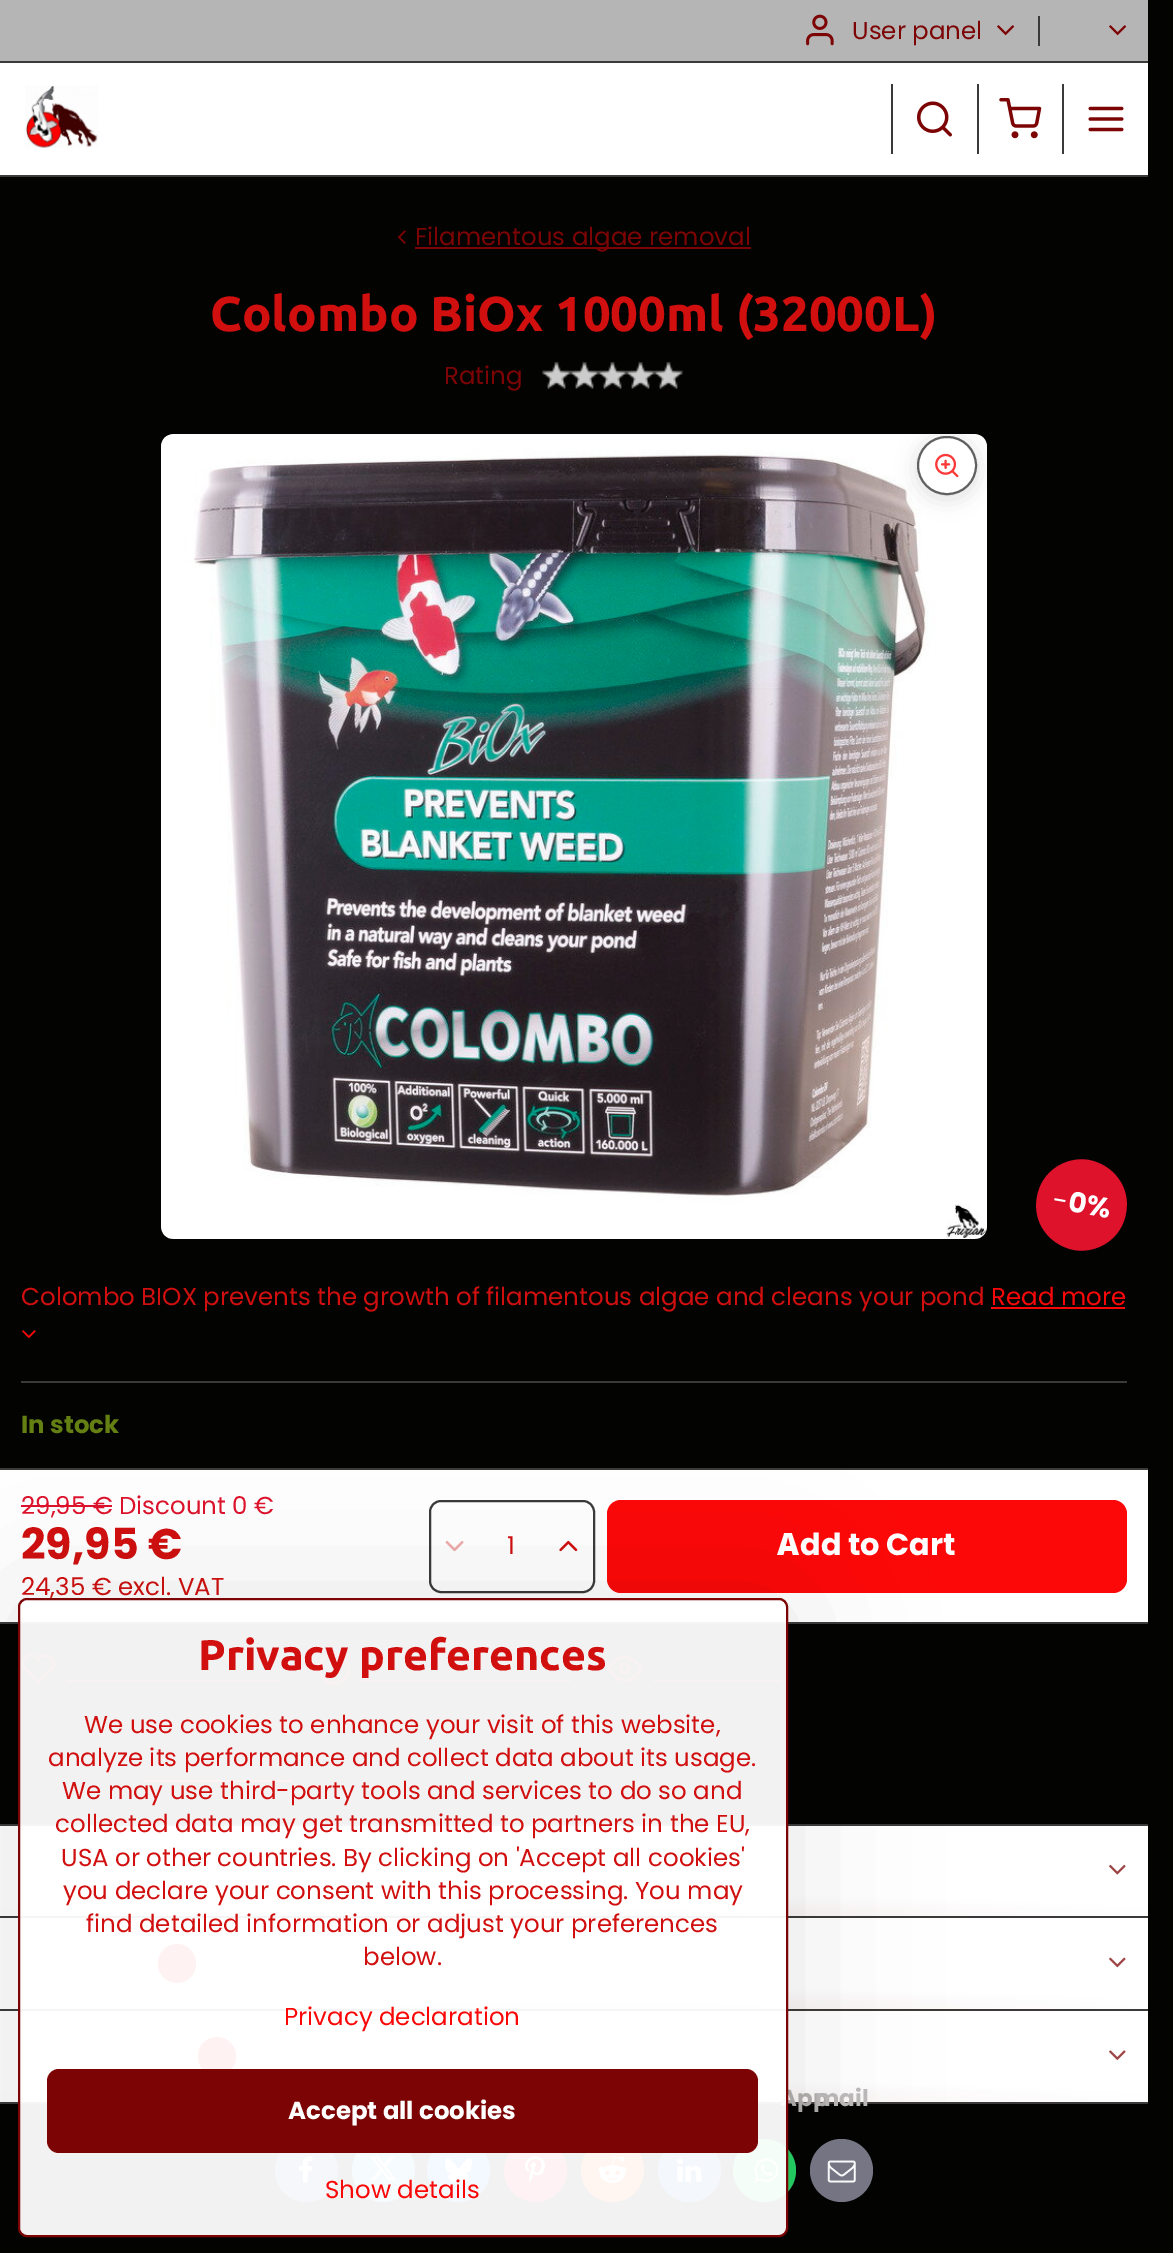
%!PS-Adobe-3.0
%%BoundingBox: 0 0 1173 2253
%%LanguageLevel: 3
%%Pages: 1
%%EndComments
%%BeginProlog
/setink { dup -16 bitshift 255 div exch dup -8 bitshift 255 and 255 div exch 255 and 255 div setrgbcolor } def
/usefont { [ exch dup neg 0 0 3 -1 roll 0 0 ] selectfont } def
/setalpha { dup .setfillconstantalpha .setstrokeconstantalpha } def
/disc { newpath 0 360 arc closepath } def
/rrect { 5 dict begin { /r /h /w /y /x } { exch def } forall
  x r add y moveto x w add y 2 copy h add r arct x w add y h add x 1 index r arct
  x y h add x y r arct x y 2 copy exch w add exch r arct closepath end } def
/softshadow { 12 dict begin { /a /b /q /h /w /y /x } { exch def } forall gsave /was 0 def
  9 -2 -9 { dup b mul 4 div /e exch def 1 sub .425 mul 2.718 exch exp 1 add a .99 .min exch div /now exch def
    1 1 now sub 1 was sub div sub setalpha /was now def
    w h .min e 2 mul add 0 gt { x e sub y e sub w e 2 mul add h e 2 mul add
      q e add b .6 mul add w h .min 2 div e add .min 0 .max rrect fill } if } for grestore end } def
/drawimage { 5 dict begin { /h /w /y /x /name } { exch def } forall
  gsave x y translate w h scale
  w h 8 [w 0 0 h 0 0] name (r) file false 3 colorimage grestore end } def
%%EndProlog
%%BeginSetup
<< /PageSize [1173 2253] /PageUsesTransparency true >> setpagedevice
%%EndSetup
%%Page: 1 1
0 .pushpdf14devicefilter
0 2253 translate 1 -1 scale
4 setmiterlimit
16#030302 setink
0 0 1173 2253 rectfill
[
    [0 0 1148 61 16#B5B5B5]
    [0 61 1148 2 16#3B3A39]
    [1038 16 2 30 16#3B3A39]
] { aload pop setink rectfill } forall
(img1.raw) 806 14 28 32 drawimage
/Poppins-Regular 24.5 usefont
16#7D0404 setink
852 39 moveto (User panel) show
(img2.raw) 997 25 18 11 drawimage
(img2.raw) 1109 25 18 11 drawimage
16#FFFFFF setink
0 63 1148 112 rectfill
16#3B3A39 setink
0 175 1148 2 rectfill
(img3.raw) 25 85 73 63 drawimage
891 84 2 70 rectfill
(img4.raw) 917 101 35 36 drawimage
977 84 2 70 rectfill
(img5.raw) 999 98 43 41 drawimage
1062 84 2 70 rectfill
(img6.raw) 1088 106 36 26 drawimage
(img7.raw) 397 230 9 14 drawimage
16#7D0404 setink
415 247 336 2 rectfill
415 245 moveto (Filamentous algae removal) show
/Ubuntu-Bold 49 usefont
16#D10F0F setink
210 331 moveto (Colombo BiOx 1000ml \(32000L\)) show
/Poppins-Regular 24.5 usefont
16#7D0404 setink
444 384 moveto (Rating) show
(img8.raw) 542 362 141 29 drawimage
16#D10F0F setink
21 1305 moveto (Colombo BIOX prevents the growth of filamentous algae and cleans your pond) show
16#FA0808 setink
991 1305 moveto (Read more) show
991 1307 134 2 rectfill
(img9.raw) 22 1330 14 9 drawimage
16#3B3A39 setink
21 1381 1106 2 rectfill
/Poppins-Bold 24.5 usefont
16#647F12 setink
21 1433 moveto (In stock) show
[
    [0 1470 1148 152 16#FFFFFF]
    [0 1468 1148 2 16#3B3A39]
    [0 1622 1148 2 16#3B3A39]
] { aload pop setink rectfill } forall
/Poppins-Regular 24.5 usefont
16#DE122B setink
21 1514 moveto (29,95 €) show
21 1505 91 2 rectfill
119 1514 moveto (Discount 0 €) show
/Poppins-Bold 42.9 usefont
16#D10F0F setink
21 1559 moveto (29,95 €) show
/Poppins-Regular 24.5 usefont
21 1595 moveto (24,35 € excl. VAT) show
16#3B3A39 setink
2 setlinewidth
430 1501 164 91 11 rrect stroke
(img10.raw) 445 1541 19 11 drawimage
16#D10F0F setink
507 1554 moveto (1) show
(img11.raw) 559 1540 19 12 drawimage
16#FC0808 setink
607 1500 520 93 14 rrect fill
/NotoSans-Black 30.5 usefont
16#FFFFFF setink
777 1555 moveto (A) show
/Poppins-Bold 30.5 usefont
800 1555 moveto (dd to Cart) show
(img12.raw) 21 1654 35 30 drawimage
16#7D0404 setink
67 1680 213 2 rectfill
(img13.raw) 318 1652 33 33 drawimage
362 1680 209 2 rectfill
(img14.raw) 607 1655 36 27 drawimage
653 1680 128 2 rectfill
16#FA0808 setink
144 1780 147 2 rectfill
(img16.raw) 161 434 826 805 drawimage
16#000014 setink
917 439 60 60 30 10.5 0.12 softshadow
16#FFFFFF setink
918 437 58 57 28.5 rrect gsave fill grestore
16#626161 setink
stroke
(img15.raw) 935 453 24 25 drawimage
16#DE122B setink
1089 1160 moveto 1114 1165 1131 1188 1126 1213 curveto 1122 1238 1098 1254 1074 1250 curveto 1049 1245 1032 1222 1037 1197 curveto 1041 1172 1065 1156 1089 1160 curveto closepath fill
/Poppins-Regular 28 usefont
16#FFFFFF setink
gsave 1051 1209 translate 10 rotate 0 0 moveto (-) show grestore
/Poppins-Bold 28 usefont
gsave 1067 1211 translate 10 rotate 0 0 moveto (0%) show grestore
16#3B3A39 setink
0 2102 1148 2 rectfill
16#FFFFFF setink
0 1826 1148 69 rectfill
gsave 0 1895 moveto 1148 1895 lineto 1148 1916 lineto 0 1916 lineto closepath clip newpath 574 1916 translate 893 30 scale
<< /ShadingType 3 /ColorSpace /DeviceRGB /Coords [0 0 0 0 0 1] /Extend [true true] /Function << /FunctionType 3 /Domain [0 1] /Functions [<< /FunctionType 2 /Domain [0 1] /C0 [0.976 0.949 0.949] /C1 [1 1 1] /N 1 >> << /FunctionType 2 /Domain [0 1] /C0 [1 1 1] /C1 [1 1 1] /N 1 >>] /Bounds [0.7] /Encode [0 1 0 1] >> >> shfill grestore
16#3B3A39 setink
0 1824 1148 2 rectfill
(img17.raw) 1109 1864 17 11 drawimage
16#FFFFFF setink
0 1918 1148 70 rectfill
gsave 0 1988 moveto 1148 1988 lineto 1148 2009 lineto 0 2009 lineto closepath clip newpath 574 2009 translate 893 30 scale
<< /ShadingType 3 /ColorSpace /DeviceRGB /Coords [0 0 0 0 0 1] /Extend [true true] /Function << /FunctionType 3 /Domain [0 1] /Functions [<< /FunctionType 2 /Domain [0 1] /C0 [0.976 0.949 0.949] /C1 [1 1 1] /N 1 >> << /FunctionType 2 /Domain [0 1] /C0 [1 1 1] /C1 [1 1 1] /N 1 >>] /Bounds [0.7] /Encode [0 1 0 1] >> >> shfill grestore
16#3B3A39 setink
0 1916 1148 2 rectfill
16#FA0808 setink
158 1944 38 39 19 rrect fill
(img18.raw) 1109 1957 17 11 drawimage
16#FFFFFF setink
0 2011 1148 70 rectfill
gsave 0 2081 moveto 1148 2081 lineto 1148 2102 lineto 0 2102 lineto closepath clip newpath 574 2102 translate 893 30 scale
<< /ShadingType 3 /ColorSpace /DeviceRGB /Coords [0 0 0 0 0 1] /Extend [true true] /Function << /FunctionType 3 /Domain [0 1] /Functions [<< /FunctionType 2 /Domain [0 1] /C0 [0.976 0.949 0.949] /C1 [1 1 1] /N 1 >> << /FunctionType 2 /Domain [0 1] /C0 [1 1 1] /C1 [1 1 1] /N 1 >>] /Bounds [0.7] /Encode [0 1 0 1] >> >> shfill grestore
16#3B3A39 setink
0 2009 1148 2 rectfill
16#FA0808 setink
198 2037 38 39 19 rrect fill
(img19.raw) 1109 2050 17 10 drawimage
16#25D366 setink
764.5 2170.5 31.5 disc fill
/Poppins-Bold 23 usefont
16#B1AEAE setink
780 2106 moveto (App) show
(img20.raw) 754 2158 25 25 drawimage
16#777788 setink
841.5 2170.5 31.5 disc fill
16#BCBABA setink
815 2106 moveto (mail) show
(img21.raw) 827 2160 29 23 drawimage
16#4267B2 setink
306.5 2170.5 31.5 disc fill
(img22.raw) 299 2156 14 27 drawimage
16#55ACEE setink
383.5 2170.5 31.5 disc fill
(img23.raw) 369 2156 28 25 drawimage
16#1185FE setink
458.5 2170.5 31.5 disc fill
(img24.raw) 445 2158 27 24 drawimage
16#E60023 setink
535.5 2170.5 31.5 disc fill
(img25.raw) 525 2156 20 27 drawimage
16#FF4500 setink
612.5 2170.5 31.5 disc fill
(img26.raw) 598 2156 29 27 drawimage
16#2867B2 setink
689.5 2170.5 31.5 disc fill
(img27.raw) 677 2158 25 24 drawimage
gsave
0 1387 moveto 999 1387 lineto 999 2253 lineto 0 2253 lineto closepath 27 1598 moveto 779 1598 lineto 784 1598 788 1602 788 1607 curveto 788 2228 lineto 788 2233 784 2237 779 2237 curveto 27 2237 lineto 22 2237 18 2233 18 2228 curveto 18 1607 lineto 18 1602 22 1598 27 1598 curveto closepath eoclip newpath
16#000000 setink
18 1598 770 639 9 70 0.1 softshadow
grestore
0.95 setalpha
16#FFFFFF setink
19 1599 768 637 8 rrect fill
1 setalpha
16#7D0404 setink
19 1599 768 637 8 rrect stroke
/Ubuntu-Bold 42.9 usefont
16#D10F0F setink
198 1670 moveto (Privacy preferences) show
/Poppins-Regular 24.5 usefont
[
    [(We use cookies to enhance your visit of this website,) 84 1733]
    [(analyze its performance and collect data about its usage.) 48 1766]
    [(We may use third-party tools and services to do so and) 62 1799]
    [(collected data may get transmitted to partners in the EU,) 55 1832]
    [(USA or other countries. By clicking on 'Accept all cookies') 61 1866]
    [(you declare your consent with this processing. You may) 63 1899]
    [(find detailed information or adjust your preferences) 86 1932]
    [(below.) 363 1965]
] { aload pop moveto show } forall
16#FA0808 setink
284 2025 moveto (Privacy declaration) show
16#7D0404 setink
47 2069 711 84 12 rrect fill
/Poppins-Bold 24.5 usefont
16#FFFFFF setink
288 2119 moveto (Accept all cookies) show
/Poppins-Regular 24.5 usefont
16#FA0808 setink
325 2198 moveto (Show details) show
.poppdf14devicefilter showpage
%%EOF
